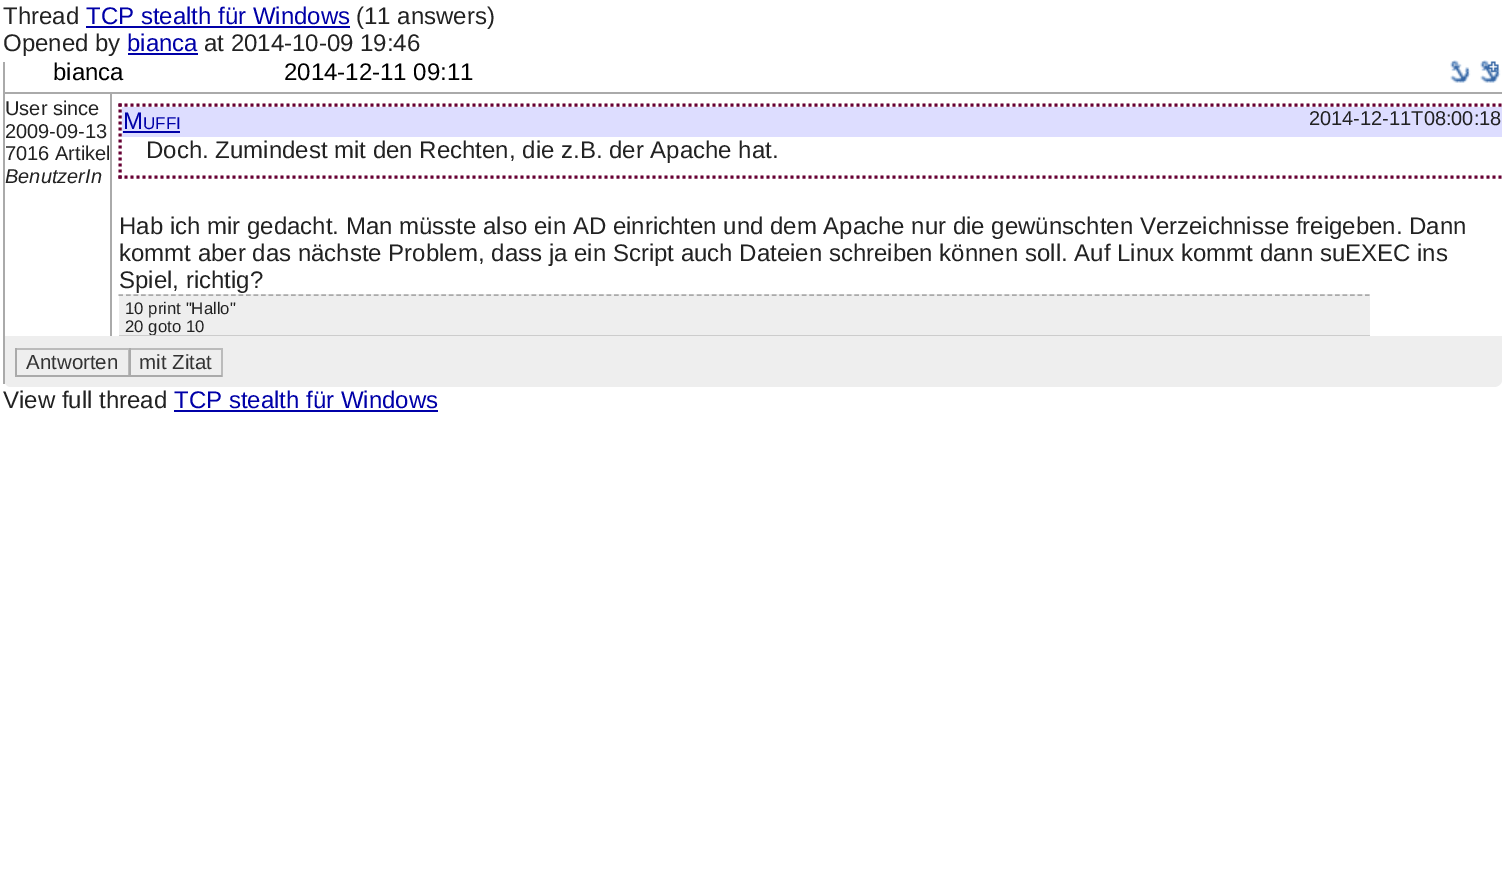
%!PS-Adobe-3.0
%%BoundingBox: 0 0 1503 873
%%LanguageLevel: 3
%%Pages: 1
%%EndComments
%%BeginProlog
/setink { dup -16 bitshift 255 div exch dup -8 bitshift 255 and 255 div exch 255 and 255 div setrgbcolor } def
/usefont { [ exch dup neg 0 0 3 -1 roll 0 0 ] selectfont } def
/drawimage { 5 dict begin { /h /w /y /x /name } { exch def } forall
  gsave x y translate w h scale
  w h 8 [w 0 0 h 0 0] name (r) file false 3 colorimage grestore end } def
%%EndProlog
%%BeginSetup
<< /PageSize [1503 873] >> setpagedevice
%%EndSetup
%%Page: 1 1
0 873 translate 1 -1 scale
4 setmiterlimit
16#FFFFFF setink
0 0 1503 873 rectfill
/LiberationSans-Regular 24 usefont
16#222222 setink
3 24 moveto (Thread) show
16#0000A8 setink
86 24 moveto (TCP stealth für Windows) show
86 26 264 2 rectfill
16#222222 setink
356 24 moveto (\(11 answers\)) show
3 51 moveto (Opened by) show
16#0000A8 setink
127 51 moveto (bianca) show
128 53 70 2 rectfill
16#222222 setink
204 51 moveto (at 2014-10-09 19:46) show
16#AAAAAA setink
3 62 2 322 rectfill
5 92 1497 2 rectfill
16#000000 setink
53 80 moveto (bianca) show
284 80 moveto (2014-12-11 09:11) show
(img1.raw) 1450 60 21 23 drawimage
(img2.raw) 1480 60 21 23 drawimage
/LiberationSans-Regular 20 usefont
16#222222 setink
[
    [(User since) 5 115]
    [(2009-09-13) 5 138]
    [(7016 Artikel) 5 160]
] { aload pop moveto show } forall
/LiberationSans-Italic 20 usefont
5 183 moveto (BenutzerIn) show
16#AAAAAA setink
110 93 2 243 rectfill
gsave
10.5 57 moveto 1494 57 lineto 1498 57 1501.5 60.5 1501.5 64.5 curveto 1501.5 379.5 lineto 1501.5 383.5 1498 387 1494 387 curveto 10.5 387 lineto 7 387 4.5 383.5 4.5 379.5 curveto 4.5 64.5 lineto 4.5 60.5 7 57 10.5 57 curveto closepath clip newpath
16#660033 setink
3 setlinewidth
[3 3] 0 setdash
118.5 105 moveto 1501.5 105 lineto stroke
118.5 177 moveto 1501.5 177 lineto stroke
grestore
16#660033 setink
3 setlinewidth
[3 3] 0 setdash
120 103.5 moveto 120 178.5 lineto stroke
16#DDDDFF setink
122 107 1380 30 rectfill
/LiberationSans-Regular 24 usefont
16#0000A8 setink
123 129 moveto (M) show
/LiberationSans-Regular 17 usefont
143 129 moveto (UFFI) show
123 131 57 2 rectfill
/LiberationSans-Regular 20 usefont
16#222222 setink
1309 125 moveto (2014-12-11T08:00:18) show
/LiberationSans-Regular 24 usefont
[
    [(Doch. Zumindest mit den Rechten, die z.B. der Apache hat.) 146 158]
    [(Hab ich mir gedacht. Man müsste also ein AD einrichten und dem Apache nur die gewünschten Verzeichnisse freigeben. Dann) 119 234]
    [(kommt aber das nächste Problem, dass ja ein Script auch Dateien schreiben können soll. Auf Linux kommt dann suEXEC ins) 119 261]
    [(Spiel, richtig?) 119 288]
] { aload pop moveto show } forall
16#EEEEEE setink
119 294 1251 41 rectfill
16#AAAAAA setink
1.5 setlinewidth
[4.5 3.01] 0 setdash
118.5 295 moveto 1369.5 295 lineto stroke
16#CCCCCC setink
119 335 1251 1 rectfill
/LiberationSans-Regular 16.75 usefont
16#222222 setink
125 314 moveto (10 print "Hallo") show
gsave
119 296 1251 39 rectclip
125 332 moveto (20 goto 10) show
grestore
16#EEEEEE setink
5 336 moveto 5 383 lineto 6 385 8 387 10 387 curveto 1494 387 lineto 1498 387 1502 384 1502 380 curveto 1502 336 lineto closepath fill
[
    [15 348 207 2 16#BBBBBB]
    [128 348 1 29 16#BBBBBB]
    [15 375 114 2 16#AAAAAA]
    [15 348 2 29 16#AAAAAA]
] { aload pop setink rectfill } forall
/LiberationSans-Regular 20.5 usefont
16#333333 setink
26 369 moveto (Antworten) show
[
    [221 348 2 29 16#BBBBBB]
    [129 375 93 2 16#AAAAAA]
    [129 348 2 29 16#AAAAAA]
] { aload pop setink rectfill } forall
16#333333 setink
139 369 moveto (mit Zitat) show
/LiberationSans-Regular 24 usefont
16#222222 setink
3 408 moveto (View full thread) show
16#0000A8 setink
174 408 moveto (TCP stealth für Windows) show
174 410 264 2 rectfill
showpage
%%EOF
